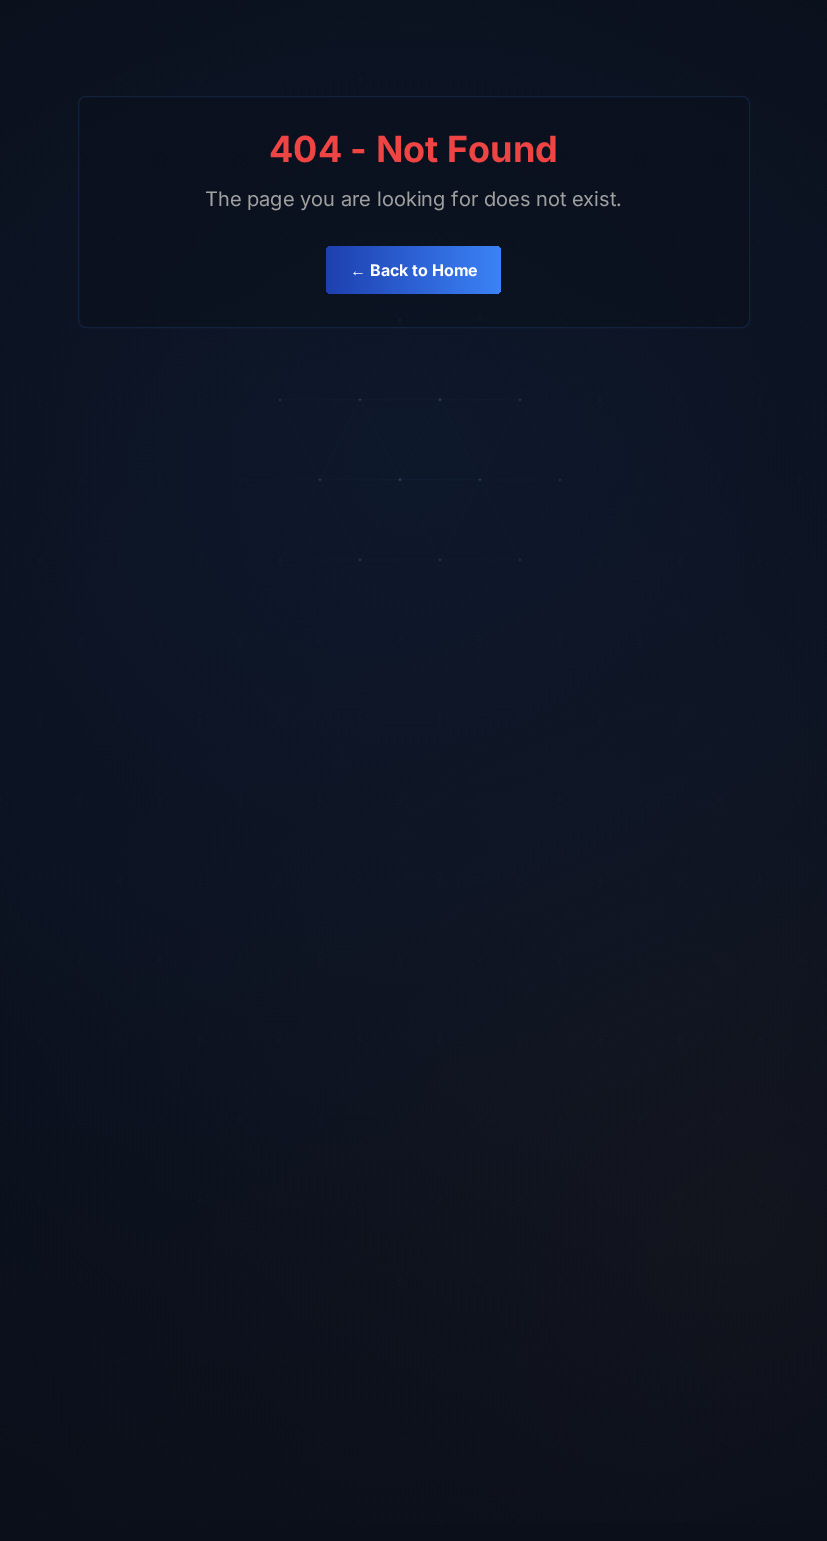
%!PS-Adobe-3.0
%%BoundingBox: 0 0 827 1541
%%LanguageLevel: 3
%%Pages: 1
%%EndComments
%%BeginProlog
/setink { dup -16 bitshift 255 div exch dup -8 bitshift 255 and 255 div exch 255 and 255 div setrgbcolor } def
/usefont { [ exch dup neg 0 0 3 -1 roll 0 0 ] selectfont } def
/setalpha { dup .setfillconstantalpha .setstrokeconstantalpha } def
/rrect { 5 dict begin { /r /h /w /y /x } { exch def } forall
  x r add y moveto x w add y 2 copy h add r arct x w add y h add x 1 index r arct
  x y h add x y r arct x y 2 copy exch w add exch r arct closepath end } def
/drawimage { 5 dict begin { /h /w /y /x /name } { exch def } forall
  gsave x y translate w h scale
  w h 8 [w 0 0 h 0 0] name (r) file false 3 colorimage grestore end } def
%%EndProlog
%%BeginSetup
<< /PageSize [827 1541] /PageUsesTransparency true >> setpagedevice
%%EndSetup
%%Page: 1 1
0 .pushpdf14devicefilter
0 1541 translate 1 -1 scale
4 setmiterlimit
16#0A0F1A setink
0 0 827 1541 rectfill
(img1.raw) 0 0 827 1521 drawimage
0.5 setalpha
78 96 672 232 8 rrect fill
0.15 setalpha
16#3B82F6 setink
78.5 96.5 671 231 7.5 rrect stroke
/Inter-Bold 36 usefont
1 setalpha
16#EF4444 setink
269 162 moveto (404 - Not Found) show
/Inter-Regular 20 usefont
16#A0A0A0 setink
205 206 moveto (The page you are looking for does not exist.) show
gsave 326 246 175 48 5 rrect clip newpath
<< /ShadingType 2 /ColorSpace /DeviceRGB /Coords [326 270 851 270] /Extend [true true] /Function << /FunctionType 3 /Domain [0 1] /Functions [<< /FunctionType 2 /Domain [0 1] /C0 [0.118 0.251 0.686] /C1 [0.231 0.51 0.965] /N 1 >> << /FunctionType 2 /Domain [0 1] /C0 [0.231 0.51 0.965] /C1 [0.145 0.388 0.922] /N 1 >> << /FunctionType 2 /Domain [0 1] /C0 [0.145 0.388 0.922] /C1 [0.118 0.251 0.686] /N 1 >>] /Bounds [0.33 0.67] /Encode [0 1 0 1 0 1] >> >> shfill grestore
/LiberationSans-Bold 16 usefont
16#FFFFFF setink
350 276 moveto (←) show
/Inter-Bold 16 usefont
370 276 moveto (Back to Home) show
.poppdf14devicefilter showpage
%%EOF
